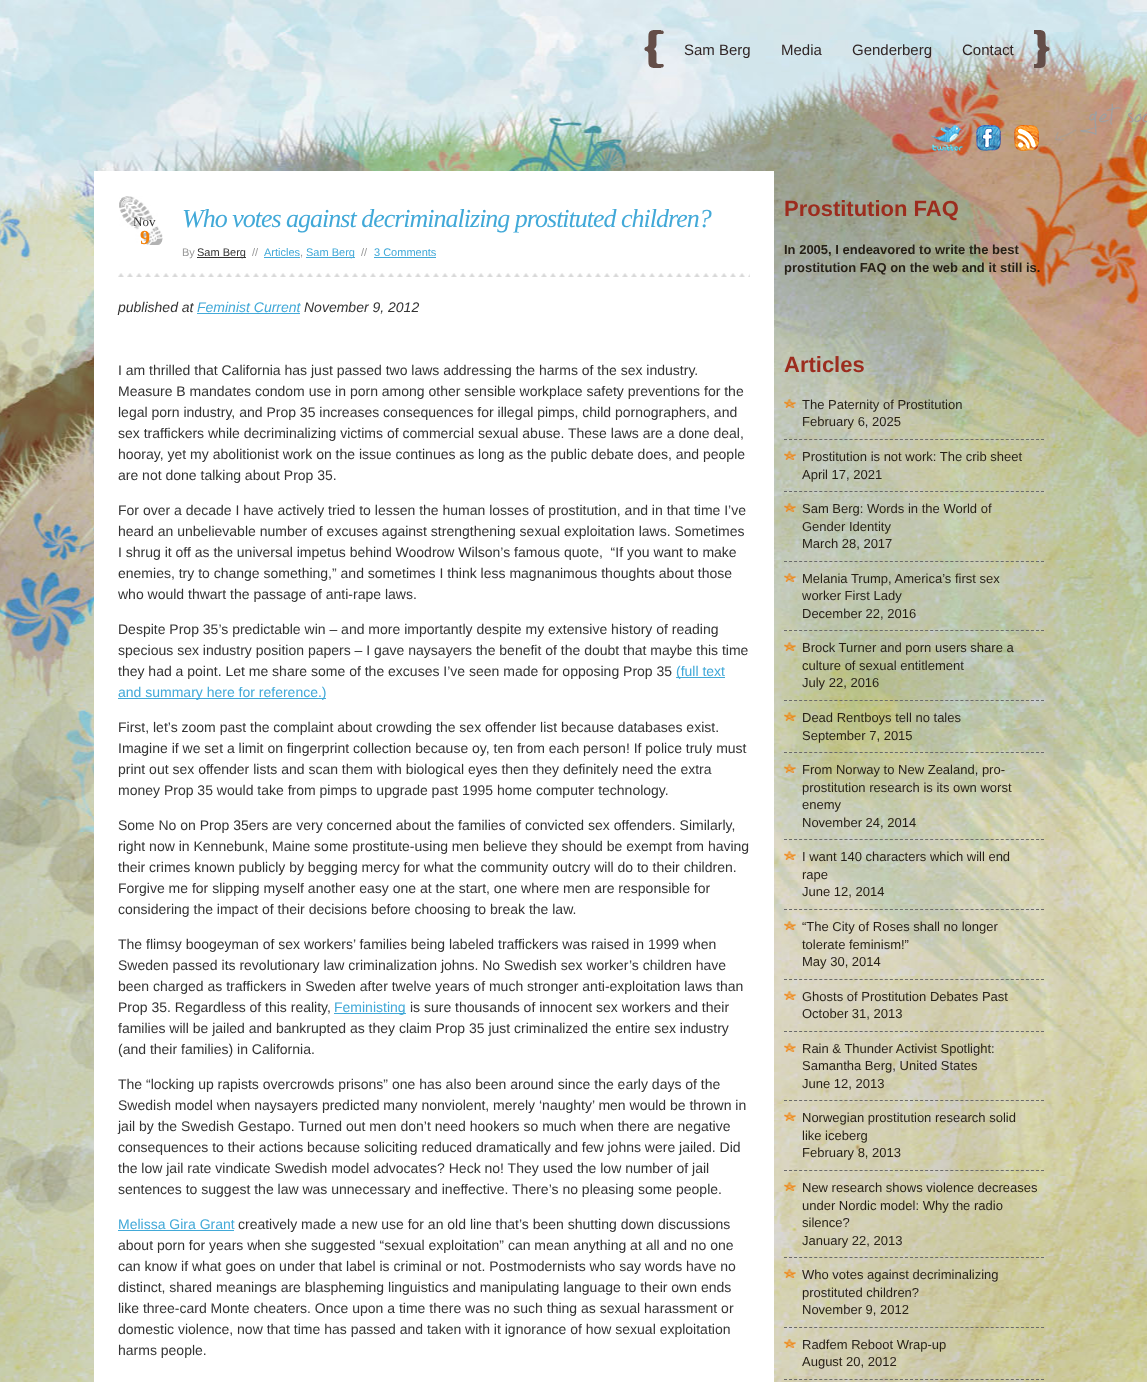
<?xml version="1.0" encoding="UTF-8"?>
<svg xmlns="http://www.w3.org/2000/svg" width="1147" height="1382">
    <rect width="100%" height="100%" fill="#FFFFFF"/>
    <image x="0" y="0" width="1147" height="1382" href="img_01.png"/>
    <image x="644" y="30" width="20" height="38" href="img_02.png"/>
    <image x="1034" y="30" width="16" height="38" href="img_03.png"/>
    <text x="684" y="55" font-family="Liberation Sans" font-size="15" fill="#302525">Sam Berg</text>
    <text x="781" y="55" font-family="Liberation Sans" font-size="15" fill="#302525">Media</text>
    <text x="852" y="55" font-family="Liberation Sans" font-size="15" fill="#302525">Genderberg</text>
    <text x="962" y="55" font-family="Liberation Sans" font-size="15" fill="#302525">Contact</text>
    <image x="931" y="125" width="32" height="26" href="img_04.png"/>
    <image x="976" y="125" width="25" height="26" href="img_05.png"/>
    <image x="1014" y="125" width="25" height="26" href="img_06.png"/>
    <image x="1054" y="103" width="93" height="38" href="img_07.png"/>
    <rect x="94" y="171" width="680" height="1211" fill="#FFFFFF"/>
    <image x="119" y="196" width="44" height="49" href="img_08.png"/>
    <text x="133" y="226" font-family="Liberation Serif" font-size="13" fill="#333333">Nov</text>
    <text x="140" y="244" font-family="Liberation Serif" font-size="20" font-weight="700" fill="#F28109">9</text>
    <text x="182" y="227" font-family="Liberation Serif" font-size="26" font-style="italic" letter-spacing="-1" fill="#42A9D8">Who votes against decriminalizing prostituted children?</text>
    <image x="118" y="273" width="632" height="4" href="img_09.png"/>
    <text x="182" y="256" font-family="Liberation Sans" font-size="11" fill="#999999">By</text>
    <rect x="197" y="257" width="49" height="1" fill="#333333"/>
    <text x="197" y="256" font-family="Liberation Sans" font-size="11" fill="#333333">Sam Berg</text>
    <text x="252" y="256" font-family="Liberation Sans" font-size="11" fill="#999999">//</text>
    <text x="264" y="256" font-family="Liberation Sans" font-size="11" fill="#42A9D8">Articles</text>
    <rect x="264" y="257" width="36" height="1" fill="#42A9D8"/>
    <text x="300" y="256" font-family="Liberation Sans" font-size="11" fill="#999999">,</text>
    <rect x="306" y="257" width="49" height="1" fill="#42A9D8"/>
    <text x="306" y="256" font-family="Liberation Sans" font-size="11" fill="#42A9D8">Sam Berg</text>
    <text x="361" y="256" font-family="Liberation Sans" font-size="11" fill="#999999">//</text>
    <text x="374" y="256" font-family="Liberation Sans" font-size="11" fill="#42A9D8">3 Comments</text>
    <rect x="374" y="257" width="62" height="1" fill="#42A9D8"/>
    <text x="118" y="312" font-family="Liberation Sans" font-size="14" font-style="italic" fill="#333333">published at</text>
    <text x="197" y="312" font-family="Liberation Sans" font-size="14" font-style="italic" fill="#42A9D8">Feminist Current</text>
    <rect x="197" y="313" width="103" height="1" fill="#42A9D8"/>
    <text x="304" y="312" font-family="Liberation Sans" font-size="14" font-style="italic" fill="#333333">November 9, 2012</text>
    <text font-family="Liberation Sans" font-size="14" fill="#333333">
        <tspan x="118" y="375">I am thrilled that California has just passed two laws addressing the harms of the sex industry.</tspan>
        <tspan x="118" y="396">Measure B mandates condom use in porn among other sensible workplace safety preventions for the</tspan>
        <tspan x="118" y="417">legal porn industry, and Prop 35 increases consequences for illegal pimps, child pornographers, and</tspan>
        <tspan x="118" y="438">sex traffickers while decriminalizing victims of commercial sexual abuse. These laws are a done deal,</tspan>
        <tspan x="118" y="459">hooray, yet my abolitionist work on the issue continues as long as the public debate does, and people</tspan>
        <tspan x="118" y="480">are not done talking about Prop 35.</tspan>
    </text>
    <text font-family="Liberation Sans" font-size="14" fill="#333333" xml:space="preserve"><tspan x="118" y="515">For over a decade I have actively tried to lessen the human losses of prostitution, and in that time I’ve</tspan><tspan x="118" y="536">heard an unbelievable number of excuses against strengthening sexual exploitation laws. Sometimes</tspan><tspan x="118" y="557">I shrug it off as the universal impetus behind Woodrow Wilson’s famous quote,  “If you want to make</tspan><tspan x="118" y="578">enemies, try to change something,” and sometimes I think less magnanimous thoughts about those</tspan><tspan x="118" y="599">who would thwart the passage of anti-rape laws.</tspan></text>
    <text font-family="Liberation Sans" font-size="14" fill="#333333">
        <tspan x="118" y="634">Despite Prop 35’s predictable win – and more importantly despite my extensive history of reading</tspan>
        <tspan x="118" y="655">specious sex industry position papers – I gave naysayers the benefit of the doubt that maybe this time</tspan>
        <tspan x="118" y="676">they had a point. Let me share some of the excuses I’ve seen made for opposing Prop 35</tspan>
    </text>
    <rect x="676" y="677" width="49" height="1" fill="#42A9D8"/>
    <text x="676" y="676" font-family="Liberation Sans" font-size="14" fill="#42A9D8">(full text</text>
    <rect x="118" y="698" width="208" height="1" fill="#42A9D8"/>
    <text x="118" y="697" font-family="Liberation Sans" font-size="14" fill="#42A9D8">and summary here for reference.)</text>
    <text font-family="Liberation Sans" font-size="14" fill="#333333">
        <tspan x="118" y="732">First, let’s zoom past the complaint about crowding the sex offender list because databases exist.</tspan>
        <tspan x="118" y="753">Imagine if we set a limit on fingerprint collection because oy, ten from each person! If police truly must</tspan>
        <tspan x="118" y="774">print out sex offender lists and scan them with biological eyes then they definitely need the extra</tspan>
        <tspan x="118" y="795">money Prop 35 would take from pimps to upgrade past 1995 home computer technology.</tspan>
    </text>
    <text font-family="Liberation Sans" font-size="14" fill="#333333">
        <tspan x="118" y="830">Some No on Prop 35ers are very concerned about the families of convicted sex offenders. Similarly,</tspan>
        <tspan x="118" y="851">right now in Kennebunk, Maine some prostitute-using men believe they should be exempt from having</tspan>
        <tspan x="118" y="872">their crimes known publicly by begging mercy for what the community outcry will do to their children.</tspan>
        <tspan x="118" y="893">Forgive me for slipping myself another easy one at the start, one where men are responsible for</tspan>
        <tspan x="118" y="914">considering the impact of their decisions before choosing to break the law.</tspan>
    </text>
    <text font-family="Liberation Sans" font-size="14" fill="#333333">
        <tspan x="118" y="949">The flimsy boogeyman of sex workers’ families being labeled traffickers was raised in 1999 when</tspan>
        <tspan x="118" y="970">Sweden passed its revolutionary law criminalization johns. No Swedish sex worker’s children have</tspan>
        <tspan x="118" y="991">been charged as traffickers in Sweden after twelve years of much stronger anti-exploitation laws than</tspan>
        <tspan x="118" y="1012">Prop 35. Regardless of this reality,</tspan>
    </text>
    <rect x="334" y="1013" width="72" height="1" fill="#42A9D8"/>
    <text x="334" y="1012" font-family="Liberation Sans" font-size="14" fill="#42A9D8">Feministing</text>
    <text x="410" y="1012" font-family="Liberation Sans" font-size="14" fill="#333333">is sure thousands of innocent sex workers and their</text>
    <text font-family="Liberation Sans" font-size="14" fill="#333333">
        <tspan x="118" y="1033">families will be jailed and bankrupted as they claim Prop 35 just criminalized the entire sex industry</tspan>
        <tspan x="118" y="1054">(and their families) in California.</tspan>
    </text>
    <text font-family="Liberation Sans" font-size="14" fill="#333333">
        <tspan x="118" y="1089">The “locking up rapists overcrowds prisons” one has also been around since the early days of the</tspan>
        <tspan x="118" y="1110">Swedish model when naysayers predicted many nonviolent, merely ‘naughty’ men would be thrown in</tspan>
        <tspan x="118" y="1131">jail by the Swedish Gestapo. Turned out men don’t need hookers so much when there are negative</tspan>
        <tspan x="118" y="1152">consequences to their actions because soliciting reduced dramatically and few johns were jailed. Did</tspan>
        <tspan x="118" y="1173">the low jail rate vindicate Swedish model advocates? Heck no! They used the low number of jail</tspan>
        <tspan x="118" y="1194">sentences to suggest the law was unnecessary and ineffective. There’s no pleasing some people.</tspan>
    </text>
    <text x="118" y="1229" font-family="Liberation Sans" font-size="14" fill="#42A9D8">Melissa Gira Grant</text>
    <rect x="118" y="1230" width="116" height="1" fill="#42A9D8"/>
    <text x="238" y="1229" font-family="Liberation Sans" font-size="14" fill="#333333">creatively made a new use for an old line that’s been shutting down discussions</text>
    <text font-family="Liberation Sans" font-size="14" fill="#333333">
        <tspan x="118" y="1250">about porn for years when she suggested “sexual exploitation” can mean anything at all and no one</tspan>
        <tspan x="118" y="1271">can know if what goes on under that label is criminal or not. Postmodernists who say words have no</tspan>
        <tspan x="118" y="1292">distinct, shared meanings are blaspheming linguistics and manipulating language to their own ends</tspan>
        <tspan x="118" y="1313">like three-card Monte cheaters. Once upon a time there was no such thing as sexual harassment or</tspan>
        <tspan x="118" y="1334">domestic violence, now that time has passed and taken with it ignorance of how sexual exploitation</tspan>
        <tspan x="118" y="1355">harms people.</tspan>
    </text>
    <text x="784" y="216" font-family="Liberation Sans" font-size="22" font-weight="700" fill="#9C2C1E">Prostitution FAQ</text>
    <text font-family="Liberation Sans" font-size="13" font-weight="700" fill="#251F15">
        <tspan x="784" y="254">In 2005, I endeavored to write the best</tspan>
        <tspan x="784" y="272">prostitution FAQ on the web and it still is.</tspan>
    </text>
    <text x="784" y="372" font-family="Liberation Sans" font-size="22" font-weight="700" fill="#9C2C1E">Articles</text>
    <image x="784" y="399" width="12" height="9" href="img_10.png"/>
    <path d="M 784 439.5 H 1044" fill="none" stroke="#696969" stroke-dasharray="3 2.04"/>
    <text font-family="Liberation Sans" font-size="13" fill="#251F15">
        <tspan x="802" y="409">The Paternity of Prostitution</tspan>
        <tspan x="802" y="426">February 6, 2025</tspan>
    </text>
    <image x="784" y="451" width="12" height="9" href="img_11.png"/>
    <path d="M 784 491.5 H 1044" fill="none" stroke="#696969" stroke-dasharray="3 2.04"/>
    <text font-family="Liberation Sans" font-size="13" fill="#251F15">
        <tspan x="802" y="461">Prostitution is not work: The crib sheet</tspan>
        <tspan x="802" y="479">April 17, 2021</tspan>
    </text>
    <image x="784" y="503" width="12" height="9" href="img_12.png"/>
    <path d="M 784 561.5 H 1044" fill="none" stroke="#696969" stroke-dasharray="3 2.04"/>
    <text font-family="Liberation Sans" font-size="13" fill="#251F15">
        <tspan x="802" y="513">Sam Berg: Words in the World of</tspan>
        <tspan x="802" y="531">Gender Identity</tspan>
        <tspan x="802" y="548">March 28, 2017</tspan>
    </text>
    <image x="784" y="573" width="12" height="9" href="img_13.png"/>
    <path d="M 784 630.5 H 1044" fill="none" stroke="#696969" stroke-dasharray="3 2.04"/>
    <text font-family="Liberation Sans" font-size="13" fill="#251F15">
        <tspan x="802" y="583">Melania Trump, America’s first sex</tspan>
        <tspan x="802" y="600">worker First Lady</tspan>
        <tspan x="802" y="618">December 22, 2016</tspan>
    </text>
    <image x="784" y="642" width="12" height="9" href="img_14.png"/>
    <path d="M 784 700.5 H 1044" fill="none" stroke="#696969" stroke-dasharray="3 2.04"/>
    <text font-family="Liberation Sans" font-size="13" fill="#251F15">
        <tspan x="802" y="652">Brock Turner and porn users share a</tspan>
        <tspan x="802" y="670">culture of sexual entitlement</tspan>
        <tspan x="802" y="687">July 22, 2016</tspan>
    </text>
    <image x="784" y="712" width="12" height="9" href="img_15.png"/>
    <path d="M 784 752.5 H 1044" fill="none" stroke="#696969" stroke-dasharray="3 2.04"/>
    <text font-family="Liberation Sans" font-size="13" fill="#251F15">
        <tspan x="802" y="722">Dead Rentboys tell no tales</tspan>
        <tspan x="802" y="740">September 7, 2015</tspan>
    </text>
    <image x="784" y="764" width="12" height="9" href="img_16.png"/>
    <path d="M 784 839.5 H 1044" fill="none" stroke="#696969" stroke-dasharray="3 2.04"/>
    <text font-family="Liberation Sans" font-size="13" fill="#251F15">
        <tspan x="802" y="774">From Norway to New Zealand, pro-</tspan>
        <tspan x="802" y="792">prostitution research is its own worst</tspan>
        <tspan x="802" y="809">enemy</tspan>
        <tspan x="802" y="827">November 24, 2014</tspan>
    </text>
    <image x="784" y="851" width="12" height="9" href="img_17.png"/>
    <path d="M 784 909.5 H 1044" fill="none" stroke="#696969" stroke-dasharray="3 2.04"/>
    <text font-family="Liberation Sans" font-size="13" fill="#251F15">
        <tspan x="802" y="861">I want 140 characters which will end</tspan>
        <tspan x="802" y="879">rape</tspan>
        <tspan x="802" y="896">June 12, 2014</tspan>
    </text>
    <image x="784" y="921" width="12" height="9" href="img_18.png"/>
    <path d="M 784 979.5 H 1044" fill="none" stroke="#696969" stroke-dasharray="3 2.04"/>
    <text font-family="Liberation Sans" font-size="13" fill="#251F15">
        <tspan x="802" y="931">“The City of Roses shall no longer</tspan>
        <tspan x="802" y="949">tolerate feminism!”</tspan>
        <tspan x="802" y="966">May 30, 2014</tspan>
    </text>
    <image x="784" y="991" width="12" height="9" href="img_19.png"/>
    <path d="M 784 1031.5 H 1044" fill="none" stroke="#696969" stroke-dasharray="3 2.04"/>
    <text font-family="Liberation Sans" font-size="13" fill="#251F15">
        <tspan x="802" y="1001">Ghosts of Prostitution Debates Past</tspan>
        <tspan x="802" y="1018">October 31, 2013</tspan>
    </text>
    <image x="784" y="1043" width="12" height="9" href="img_20.png"/>
    <path d="M 784 1100.5 H 1044" fill="none" stroke="#696969" stroke-dasharray="3 2.04"/>
    <text font-family="Liberation Sans" font-size="13" fill="#251F15">
        <tspan x="802" y="1053">Rain &amp; Thunder Activist Spotlight:</tspan>
        <tspan x="802" y="1070">Samantha Berg, United States</tspan>
        <tspan x="802" y="1088">June 12, 2013</tspan>
    </text>
    <image x="784" y="1112" width="12" height="9" href="img_21.png"/>
    <path d="M 784 1170.5 H 1044" fill="none" stroke="#696969" stroke-dasharray="3 2.04"/>
    <text font-family="Liberation Sans" font-size="13" fill="#251F15">
        <tspan x="802" y="1122">Norwegian prostitution research solid</tspan>
        <tspan x="802" y="1140">like iceberg</tspan>
        <tspan x="802" y="1157">February 8, 2013</tspan>
    </text>
    <image x="784" y="1182" width="12" height="9" href="img_22.png"/>
    <path d="M 784 1257.5 H 1044" fill="none" stroke="#696969" stroke-dasharray="3 2.04"/>
    <text font-family="Liberation Sans" font-size="13" fill="#251F15">
        <tspan x="802" y="1192">New research shows violence decreases</tspan>
        <tspan x="802" y="1210">under Nordic model: Why the radio</tspan>
        <tspan x="802" y="1227">silence?</tspan>
        <tspan x="802" y="1245">January 22, 2013</tspan>
    </text>
    <image x="784" y="1269" width="12" height="9" href="img_23.png"/>
    <path d="M 784 1327.5 H 1044" fill="none" stroke="#696969" stroke-dasharray="3 2.04"/>
    <text font-family="Liberation Sans" font-size="13" fill="#251F15">
        <tspan x="802" y="1279">Who votes against decriminalizing</tspan>
        <tspan x="802" y="1297">prostituted children?</tspan>
        <tspan x="802" y="1314">November 9, 2012</tspan>
    </text>
    <image x="784" y="1339" width="12" height="9" href="img_24.png"/>
    <path d="M 784 1379.5 H 1044" fill="none" stroke="#696969" stroke-dasharray="3 2.04"/>
    <text font-family="Liberation Sans" font-size="13" fill="#251F15">
        <tspan x="802" y="1349">Radfem Reboot Wrap-up</tspan>
        <tspan x="802" y="1366">August 20, 2012</tspan>
    </text>
</svg>
